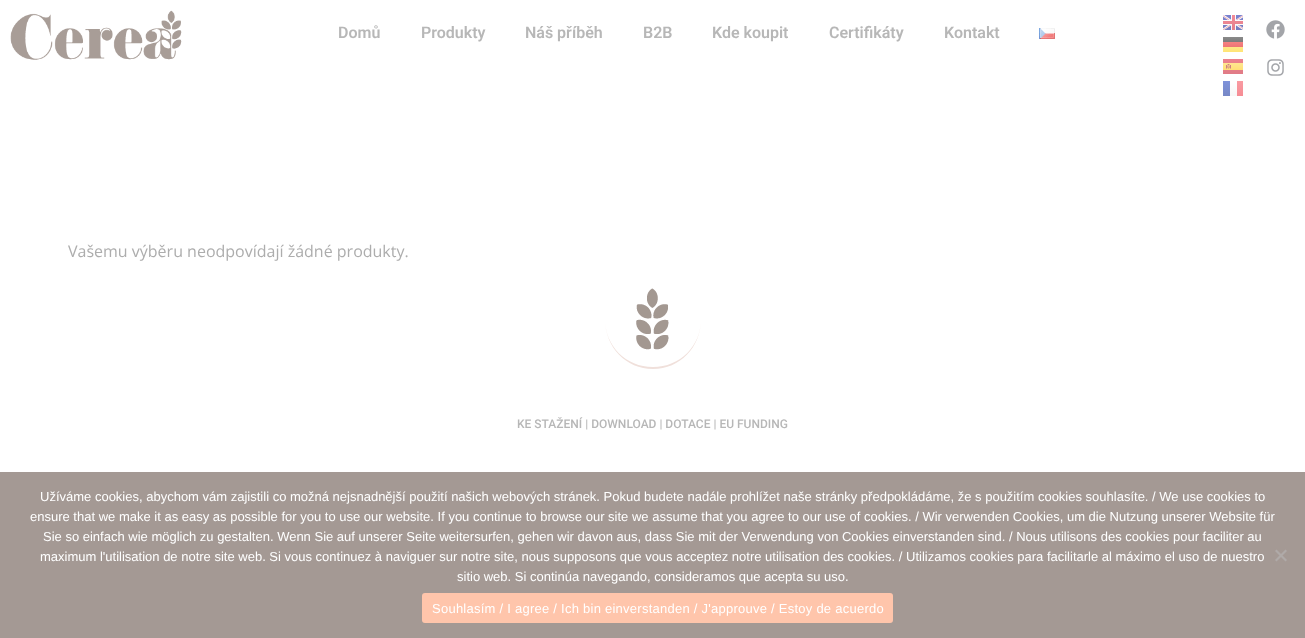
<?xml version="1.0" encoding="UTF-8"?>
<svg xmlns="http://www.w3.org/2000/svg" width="1305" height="638">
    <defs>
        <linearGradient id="g1" gradientUnits="userSpaceOnUse" x1="1234" y1="37" x2="1234" y2="42"><stop offset="0" stop-color="#8A8A8A"/><stop offset="1" stop-color="#7C7C7C"/></linearGradient>
        <linearGradient id="g2" gradientUnits="userSpaceOnUse" x1="1234" y1="42" x2="1234" y2="47"><stop offset="0" stop-color="#F78181"/><stop offset="1" stop-color="#ED7575"/></linearGradient>
        <linearGradient id="g3" gradientUnits="userSpaceOnUse" x1="1234" y1="47" x2="1234" y2="52"><stop offset="0" stop-color="#FFE887"/><stop offset="1" stop-color="#FFE575"/></linearGradient>
        <linearGradient id="g4" gradientUnits="userSpaceOnUse" x1="1227" y1="81" x2="1227" y2="96"><stop offset="0" stop-color="#7E92DA"/><stop offset="1" stop-color="#7788C6"/></linearGradient>
        <linearGradient id="g5" gradientUnits="userSpaceOnUse" x1="1234" y1="81" x2="1234" y2="96"><stop offset="0" stop-color="#FFFFFF"/><stop offset="1" stop-color="#F7F7F7"/></linearGradient>
        <linearGradient id="g6" gradientUnits="userSpaceOnUse" x1="1239" y1="81" x2="1239" y2="96"><stop offset="0" stop-color="#F99BA2"/><stop offset="1" stop-color="#F68C94"/></linearGradient>
    </defs>
    <rect width="100%" height="100%" fill="#FFFFFF"/>
    <image x="10" y="10" width="172" height="50" href="img_01.png"/>
    <text x="338" y="38" font-family="Roboto" font-size="16" font-weight="600" fill="#B7B7B7">Domů</text>
    <text x="421" y="38" font-family="Roboto" font-size="16" font-weight="600" fill="#B7B7B7">Produkty</text>
    <text x="525" y="38" font-family="Roboto" font-size="16" font-weight="600" fill="#B7B7B7">Náš příběh</text>
    <text x="643" y="38" font-family="Roboto" font-size="16" font-weight="600" fill="#B7B7B7">B2B</text>
    <text x="712" y="38" font-family="Roboto" font-size="16" font-weight="600" fill="#B7B7B7">Kde koupit</text>
    <text x="829" y="38" font-family="Roboto" font-size="16" font-weight="600" fill="#B7B7B7">Certifikáty</text>
    <text x="944" y="38" font-family="Roboto" font-size="16" font-weight="600" fill="#B7B7B7">Kontakt</text>
    <image x="1039" y="28" width="16" height="11" href="img_02.png"/>
    <image x="1223" y="15" width="20" height="15" href="img_03.png"/>
    <rect x="1223" y="37" width="20" height="5" fill="url(#g1)"/>
    <rect x="1223" y="42" width="20" height="5" fill="url(#g2)"/>
    <rect x="1223" y="47" width="20" height="5" fill="url(#g3)"/>
    <image x="1223" y="59" width="20" height="15" href="img_04.png"/>
    <rect x="1223" y="81" width="7" height="15" fill="url(#g4)"/>
    <rect x="1230" y="81" width="7" height="15" fill="url(#g5)"/>
    <rect x="1237" y="81" width="6" height="15" fill="url(#g6)"/>
    <image x="1266" y="20" width="19" height="19" href="img_05.png"/>
    <image x="1267" y="59" width="17" height="17" href="img_06.png"/>
    <text x="68" y="257" font-family="Open Sans" font-size="16" fill="#ADADAD">Vašemu výběru neodpovídají žádné produkty.</text>
    <text x="517" y="428" font-family="Roboto" font-size="12" font-weight="500" fill="#B7B7B7">KE STAŽENÍ | DOWNLOAD | DOTACE | EU FUNDING</text>
    <rect x="0" y="472" width="1305" height="166" fill="#A49994"/>
    <text x="40" y="501" font-family="Liberation Sans" font-size="13" fill="#FFFFFF">Užíváme cookies, abychom vám zajistili co možná nejsnadnější použití našich webových stránek. Pokud budete nadále prohlížet naše stránky předpokládáme, že s použitím cookies souhlasíte. / We use cookies to</text>
    <text x="30" y="521" font-family="Liberation Sans" font-size="13" fill="#FFFFFF">ensure that we make it as easy as possible for you to use our website. If you continue to browse our site we assume that you agree to our use of cookies. / Wir verwenden Cookies, um die Nutzung unserer Website für</text>
    <text x="43" y="541" font-family="Liberation Sans" font-size="13" fill="#FFFFFF">Sie so einfach wie möglich zu gestalten. Wenn Sie auf unserer Seite weitersurfen, gehen wir davon aus, dass Sie mit der Verwendung von Cookies einverstanden sind. / Nous utilisons des cookies pour faciliter au</text>
    <text x="40" y="561" font-family="Liberation Sans" font-size="13" fill="#FFFFFF">maximum l'utilisation de notre site web. Si vous continuez à naviguer sur notre site, nous supposons que vous acceptez notre utilisation des cookies. / Utilizamos cookies para facilitarle al máximo el uso de nuestro</text>
    <text x="457" y="581" font-family="Liberation Sans" font-size="13" fill="#FFFFFF">sitio web. Si continúa navegando, consideramos que acepta su uso.</text>
    <path d="M 1285.5 549.5 L 1287 551 L 1276.5 561.5 L 1275 560 Z" fill="#AFAAA8"/>
    <path d="M 1275 551 L 1276.5 549.5 L 1287 560 L 1285.5 561.5 Z" fill="#AFAAA8"/>
    <rect x="422" y="593" width="471" height="30" rx="3" fill="#FFC5AB"/>
    <text x="432" y="613" font-family="Liberation Sans" font-size="13" letter-spacing="0.25" fill="#FFFFFF">Souhlasím / I agree / Ich bin einverstanden / J'approuve / Estoy de acuerdo</text>
    <image x="636" y="288" width="33" height="62" href="img_07.png"/>
    <path d="M 605 319 C 605 346 626 367 653 367 C 680 367 701 346 701 319 C 701 347 680 369 653 369 C 626 369 605 347 605 319" fill="#F0E0DB"/>
</svg>
